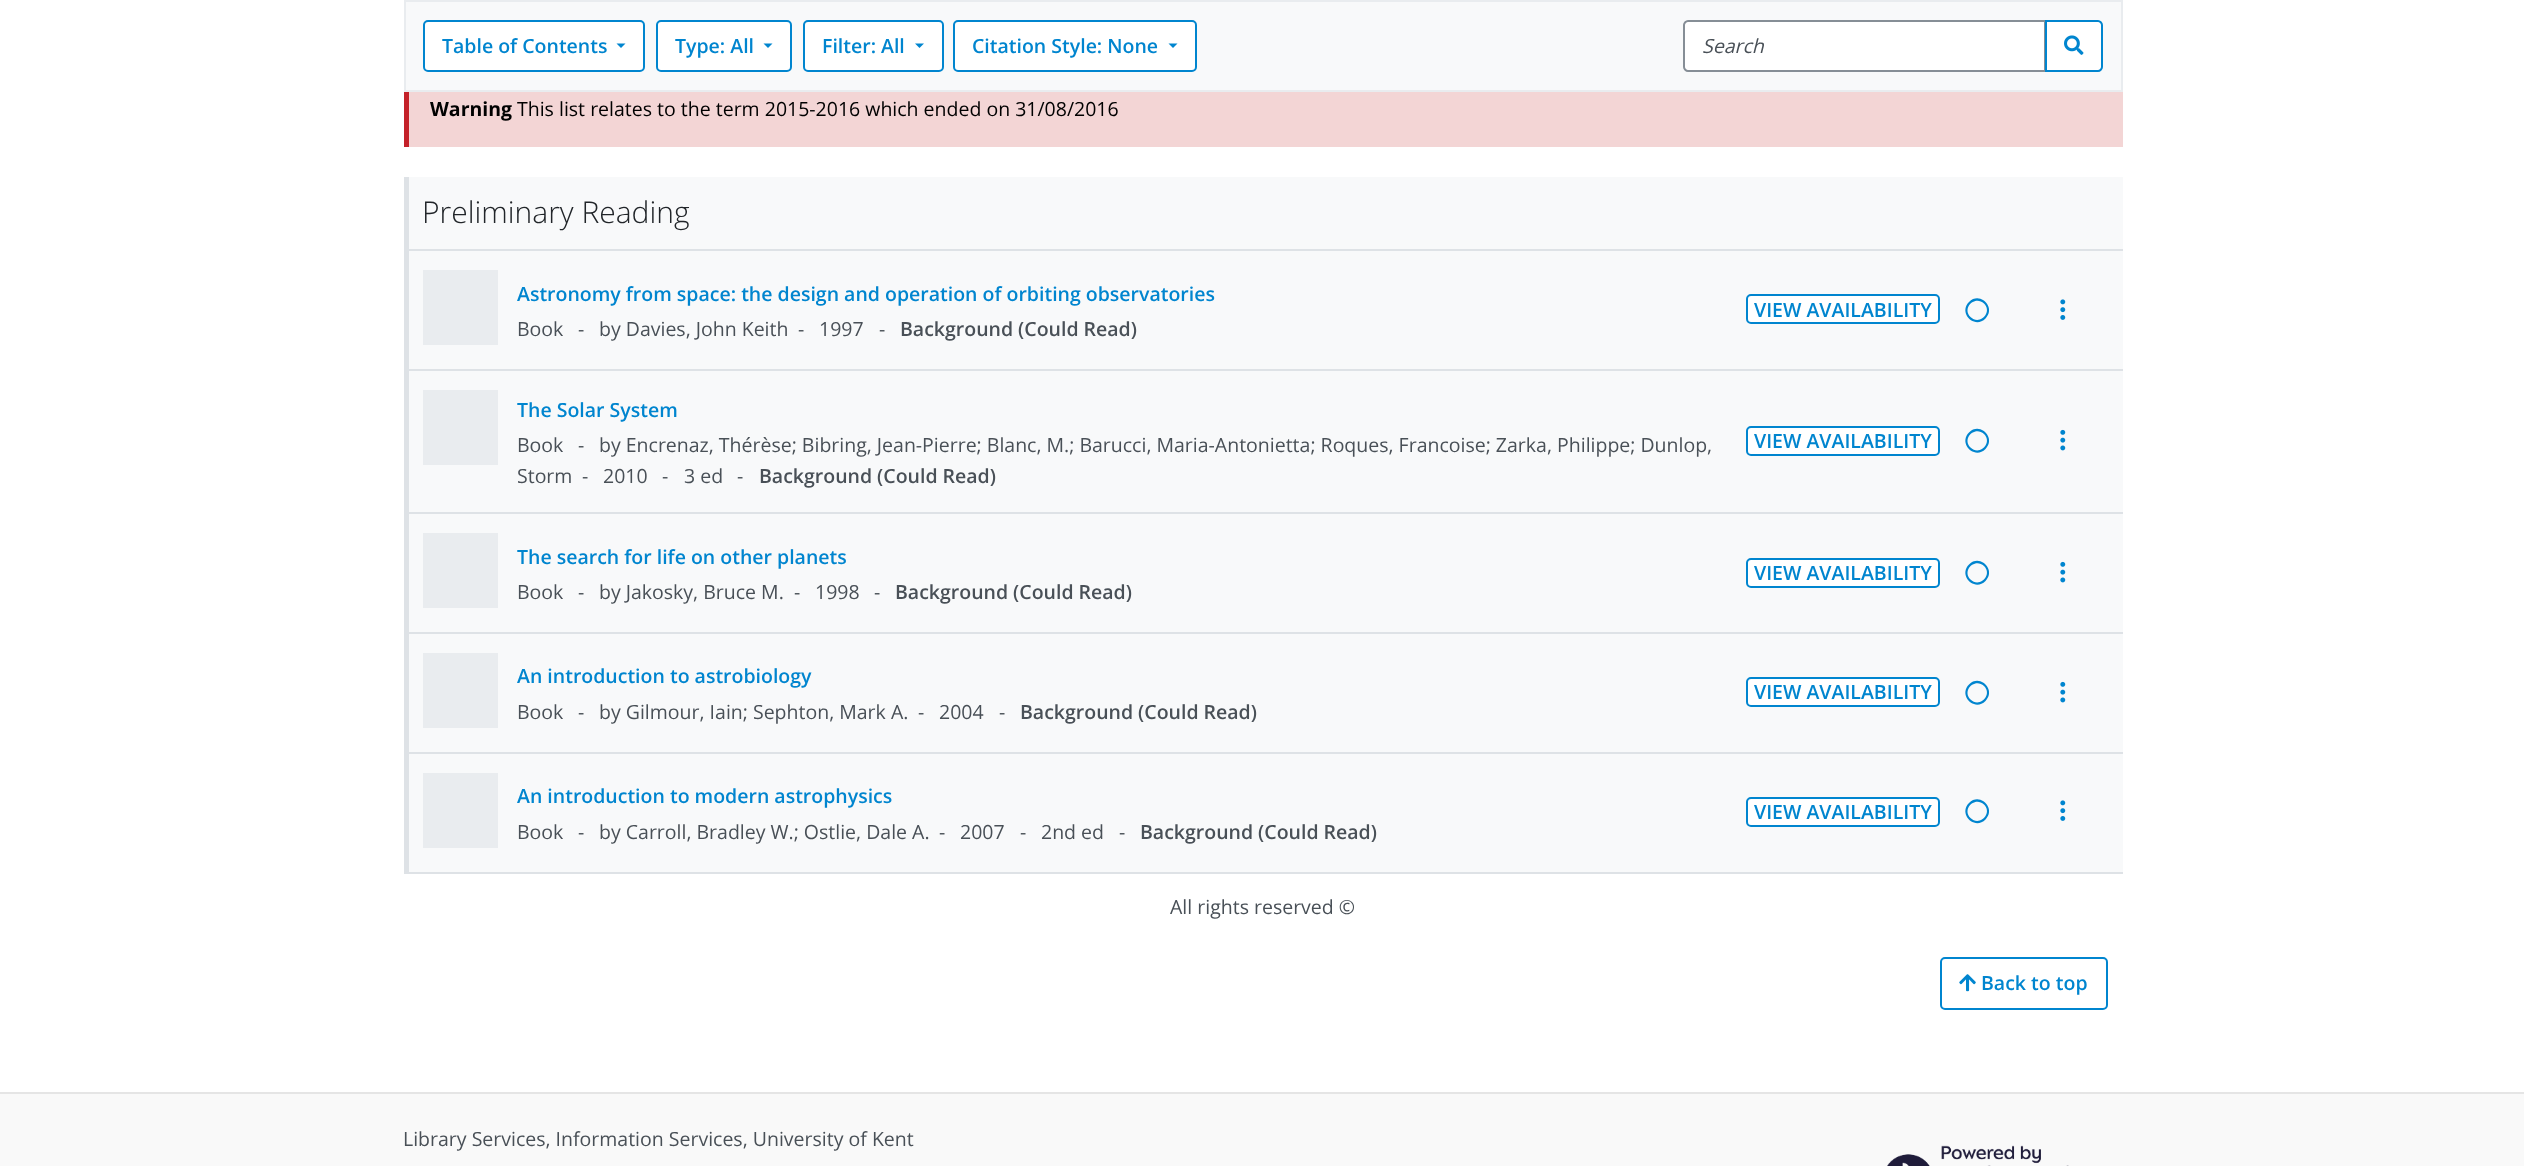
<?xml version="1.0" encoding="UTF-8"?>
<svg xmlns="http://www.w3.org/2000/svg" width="2524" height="1166">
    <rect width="100%" height="100%" fill="#FFFFFF"/>
    <rect x="405" y="1" width="1717" height="90" fill="#F8F9FA" stroke="#E9ECEF" stroke-width="2"/>
    <rect x="424" y="21" width="220" height="50" rx="4" fill="#FFFFFF" stroke="#0085CF" stroke-width="2"/>
    <text x="442" y="53" font-family="Open Sans" font-size="19.5" font-weight="600" fill="#0085CF">Table of Contents</text>
    <path d="M 616.5 43.5 H 625.5 L 621 48 Z" fill="#0085CF"/>
    <rect x="657" y="21" width="134" height="50" rx="4" fill="#FFFFFF" stroke="#0085CF" stroke-width="2"/>
    <text x="675" y="53" font-family="Open Sans" font-size="19.5" font-weight="600" fill="#0085CF">Type: All</text>
    <path d="M 763.5 43.5 H 772.5 L 768 48 Z" fill="#0085CF"/>
    <rect x="804" y="21" width="139" height="50" rx="4" fill="#FFFFFF" stroke="#0085CF" stroke-width="2"/>
    <text x="822" y="53" font-family="Open Sans" font-size="19.5" font-weight="600" fill="#0085CF">Filter: All</text>
    <path d="M 915 43.5 H 924 L 919.5 48 Z" fill="#0085CF"/>
    <rect x="954" y="21" width="242" height="50" rx="4" fill="#FFFFFF" stroke="#0085CF" stroke-width="2"/>
    <text x="972" y="53" font-family="Open Sans" font-size="19.5" font-weight="600" fill="#0085CF">Citation Style: None</text>
    <path d="M 1168.5 43.5 H 1177.5 L 1173 48 Z" fill="#0085CF"/>
    <path d="M 1688 21 H 2045 V 71 H 1688 C 1686 71 1684 69 1684 67 V 25 C 1684 23 1686 21 1688 21 Z" fill="#FFFFFF" stroke="#868E96" stroke-width="2"/>
    <text x="1702" y="53" font-family="Open Sans" font-size="19.5" font-style="italic" fill="#495057">Search</text>
    <path d="M 2046 21 H 2098 C 2100 21 2102 23 2102 25 V 67 C 2102 69 2100 71 2098 71 H 2046 Z" fill="#FFFFFF" stroke="#0085CF" stroke-width="2"/>
    <image x="2064" y="35" width="20" height="20" href="img_01.png"/>
    <rect x="409" y="92" width="1714" height="55" fill="#F3D5D5"/>
    <rect x="404" y="92" width="5" height="55" fill="#C42129"/>
    <text x="430" y="116" font-family="Open Sans" font-size="19.5" font-weight="700" fill="#000000">Warning</text>
    <text x="517" y="116" font-family="Open Sans" font-size="19.5" fill="#000000">This list relates to the term 2015-2016 which ended on 31/08/2016</text>
    <rect x="409" y="177" width="1714" height="695" fill="#F8F9FA"/>
    <rect x="404" y="177" width="5" height="695" fill="#DEE2E6"/>
    <rect x="404" y="872" width="1719" height="2" fill="#DEE2E6"/>
    <rect x="404" y="249" width="1719" height="2" fill="#DEE2E6"/>
    <text x="422" y="223" font-family="Open Sans" font-size="30" font-weight="300" fill="#212529">Preliminary Reading</text>
    <rect x="404" y="369" width="1719" height="2" fill="#DEE2E6"/>
    <rect x="423" y="270" width="75" height="75" fill="#E9ECEF"/>
    <text x="517" y="301" font-family="Open Sans" font-size="19.5" font-weight="600" fill="#0085CF">Astronomy from space: the design and operation of orbiting observatories</text>
    <text x="517" y="336" font-family="Open Sans" font-size="19.5" fill="#495057">Book</text>
    <text x="578" y="336" font-family="Open Sans" font-size="19.5" fill="#495057">-</text>
    <text x="599" y="336" font-family="Open Sans" font-size="19.5" fill="#495057">by Davies, John Keith</text>
    <text x="798" y="336" font-family="Open Sans" font-size="19.5" fill="#495057">-</text>
    <text x="819" y="336" font-family="Open Sans" font-size="19.5" fill="#495057">1997</text>
    <text x="879" y="336" font-family="Open Sans" font-size="19.5" fill="#495057">-</text>
    <text x="900" y="336" font-family="Open Sans" font-size="19.5" font-weight="600" fill="#495057">Background (Could Read)</text>
    <rect x="1747" y="295" width="192" height="28" rx="4" fill="#FFFFFF" stroke="#0085CF" stroke-width="2"/>
    <text x="1754" y="317" font-family="Open Sans" font-size="19.5" font-weight="600" fill="#0085CF">VIEW AVAILABILITY</text>
    <path d="M 1969 302 C 1980 291 1996.5 307.5 1985.5 318.5 C 1974.5 329.5 1958 313 1969 302 Z M 1970.5 317 C 1979.5 326 1993 312.5 1984 303.5 C 1975 295 1961.5 308 1970.5 317 Z" fill="#0085CF"/>
    <image x="2060" y="299" width="6" height="21" href="img_02.png"/>
    <rect x="404" y="512" width="1719" height="2" fill="#DEE2E6"/>
    <rect x="423" y="390" width="75" height="75" fill="#E9ECEF"/>
    <text x="517" y="417" font-family="Open Sans" font-size="19.5" font-weight="600" fill="#0085CF">The Solar System</text>
    <text x="517" y="452" font-family="Open Sans" font-size="19.5" fill="#495057">Book</text>
    <text x="578" y="452" font-family="Open Sans" font-size="19.5" fill="#495057">-</text>
    <text x="599" y="452" font-family="Open Sans" font-size="19.5" fill="#495057">by Encrenaz, Thérèse; Bibring, Jean-Pierre; Blanc, M.; Barucci, Maria-Antonietta; Roques, Francoise; Zarka, Philippe; Dunlop,</text>
    <text x="517" y="483" font-family="Open Sans" font-size="19.5" fill="#495057">Storm</text>
    <text x="582" y="483" font-family="Open Sans" font-size="19.5" fill="#495057">-</text>
    <text x="603" y="483" font-family="Open Sans" font-size="19.5" fill="#495057">2010</text>
    <text x="662" y="483" font-family="Open Sans" font-size="19.5" fill="#495057">-</text>
    <text x="684" y="483" font-family="Open Sans" font-size="19.5" fill="#495057">3 ed</text>
    <text x="737" y="483" font-family="Open Sans" font-size="19.5" fill="#495057">-</text>
    <text x="759" y="483" font-family="Open Sans" font-size="19.5" font-weight="600" fill="#495057">Background (Could Read)</text>
    <rect x="1747" y="427" width="192" height="28" rx="4" fill="#FFFFFF" stroke="#0085CF" stroke-width="2"/>
    <text x="1754" y="448" font-family="Open Sans" font-size="19.5" font-weight="600" fill="#0085CF">VIEW AVAILABILITY</text>
    <path d="M 1969 432.5 C 1980 421.5 1996.5 438 1985.5 449 C 1974.5 460 1958 443.5 1969 432.5 Z M 1970.5 447.5 C 1979.5 456.5 1993 443 1984 434 C 1975 425.5 1961.5 438.5 1970.5 447.5 Z" fill="#0085CF"/>
    <image x="2060" y="429" width="6" height="22" href="img_03.png"/>
    <rect x="404" y="632" width="1719" height="2" fill="#DEE2E6"/>
    <rect x="423" y="533" width="75" height="75" fill="#E9ECEF"/>
    <text x="517" y="564" font-family="Open Sans" font-size="19.5" font-weight="600" fill="#0085CF">The search for life on other planets</text>
    <text x="517" y="599" font-family="Open Sans" font-size="19.5" fill="#495057">Book</text>
    <text x="578" y="599" font-family="Open Sans" font-size="19.5" fill="#495057">-</text>
    <text x="599" y="599" font-family="Open Sans" font-size="19.5" fill="#495057">by Jakosky, Bruce M.</text>
    <text x="794" y="599" font-family="Open Sans" font-size="19.5" fill="#495057">-</text>
    <text x="815" y="599" font-family="Open Sans" font-size="19.5" fill="#495057">1998</text>
    <text x="874" y="599" font-family="Open Sans" font-size="19.5" fill="#495057">-</text>
    <text x="895" y="599" font-family="Open Sans" font-size="19.5" font-weight="600" fill="#495057">Background (Could Read)</text>
    <rect x="1747" y="559" width="192" height="28" rx="4" fill="#FFFFFF" stroke="#0085CF" stroke-width="2"/>
    <text x="1754" y="580" font-family="Open Sans" font-size="19.5" font-weight="600" fill="#0085CF">VIEW AVAILABILITY</text>
    <path d="M 1969 564.5 C 1980 553.5 1996.5 570 1985.5 581 C 1974.5 592 1958 575.5 1969 564.5 Z M 1970.5 579.5 C 1979.5 588.5 1993 575 1984 566 C 1975 557.5 1961.5 570.5 1970.5 579.5 Z" fill="#0085CF"/>
    <image x="2060" y="561" width="6" height="22" href="img_03.png"/>
    <rect x="404" y="752" width="1719" height="2" fill="#DEE2E6"/>
    <rect x="423" y="653" width="75" height="75" fill="#E9ECEF"/>
    <text x="517" y="683" font-family="Open Sans" font-size="19.5" font-weight="600" fill="#0085CF">An introduction to astrobiology</text>
    <text x="517" y="719" font-family="Open Sans" font-size="19.5" fill="#495057">Book</text>
    <text x="578" y="719" font-family="Open Sans" font-size="19.5" fill="#495057">-</text>
    <text x="599" y="719" font-family="Open Sans" font-size="19.5" fill="#495057">by Gilmour, Iain; Sephton, Mark A.</text>
    <text x="918" y="719" font-family="Open Sans" font-size="19.5" fill="#495057">-</text>
    <text x="939" y="719" font-family="Open Sans" font-size="19.5" fill="#495057">2004</text>
    <text x="999" y="719" font-family="Open Sans" font-size="19.5" fill="#495057">-</text>
    <text x="1020" y="719" font-family="Open Sans" font-size="19.5" font-weight="600" fill="#495057">Background (Could Read)</text>
    <rect x="1747" y="678" width="192" height="28" rx="4" fill="#FFFFFF" stroke="#0085CF" stroke-width="2"/>
    <text x="1754" y="699" font-family="Open Sans" font-size="19.5" font-weight="600" fill="#0085CF">VIEW AVAILABILITY</text>
    <path d="M 1969 684.5 C 1980 673.5 1996.5 690 1985.5 701 C 1974.5 712 1958 695.5 1969 684.5 Z M 1970.5 699.5 C 1979.5 708.5 1993 695 1984 686 C 1975 677.5 1961.5 690.5 1970.5 699.5 Z" fill="#0085CF"/>
    <image x="2060" y="681" width="6" height="22" href="img_03.png"/>
    <rect x="423" y="773" width="75" height="75" fill="#E9ECEF"/>
    <text x="517" y="803" font-family="Open Sans" font-size="19.5" font-weight="600" fill="#0085CF">An introduction to modern astrophysics</text>
    <text x="517" y="839" font-family="Open Sans" font-size="19.5" fill="#495057">Book</text>
    <text x="578" y="839" font-family="Open Sans" font-size="19.5" fill="#495057">-</text>
    <text x="599" y="839" font-family="Open Sans" font-size="19.5" fill="#495057">by Carroll, Bradley W.; Ostlie, Dale A.</text>
    <text x="939" y="839" font-family="Open Sans" font-size="19.5" fill="#495057">-</text>
    <text x="960" y="839" font-family="Open Sans" font-size="19.5" fill="#495057">2007</text>
    <text x="1020" y="839" font-family="Open Sans" font-size="19.5" fill="#495057">-</text>
    <text x="1041" y="839" font-family="Open Sans" font-size="19.5" fill="#495057">2nd ed</text>
    <text x="1119" y="839" font-family="Open Sans" font-size="19.5" fill="#495057">-</text>
    <text x="1140" y="839" font-family="Open Sans" font-size="19.5" font-weight="600" fill="#495057">Background (Could Read)</text>
    <rect x="1747" y="798" width="192" height="28" rx="4" fill="#FFFFFF" stroke="#0085CF" stroke-width="2"/>
    <text x="1754" y="819" font-family="Open Sans" font-size="19.5" font-weight="600" fill="#0085CF">VIEW AVAILABILITY</text>
    <path d="M 1969 803 C 1980 792 1996.5 808.5 1985.5 819.5 C 1974.5 830.5 1958 814 1969 803 Z M 1970.5 818 C 1979.5 827 1993 813.5 1984 804.5 C 1975 796 1961.5 809 1970.5 818 Z" fill="#0085CF"/>
    <image x="2060" y="800" width="6" height="21" href="img_02.png"/>
    <text x="1170" y="914" font-family="Open Sans" font-size="19.5" fill="#495057">All rights reserved ©</text>
    <rect x="1941" y="958" width="166" height="51" rx="4" fill="none" stroke="#0085CF" stroke-width="2"/>
    <image x="1959" y="974" width="17" height="18" href="img_04.png"/>
    <text x="1981" y="990" font-family="Open Sans" font-size="19.5" font-weight="600" fill="#0085CF">Back to top</text>
    <rect x="0" y="1094" width="2524" height="72" fill="#F9F9F9"/>
    <rect x="0" y="1092" width="2524" height="2" fill="#E5E5E5"/>
    <text x="403" y="1146" font-family="Open Sans" font-size="19.5" fill="#495057">Library Services, Information Services, University of Kent</text>
    <image x="1887" y="1145" width="182" height="21" href="img_05.png"/>
</svg>
